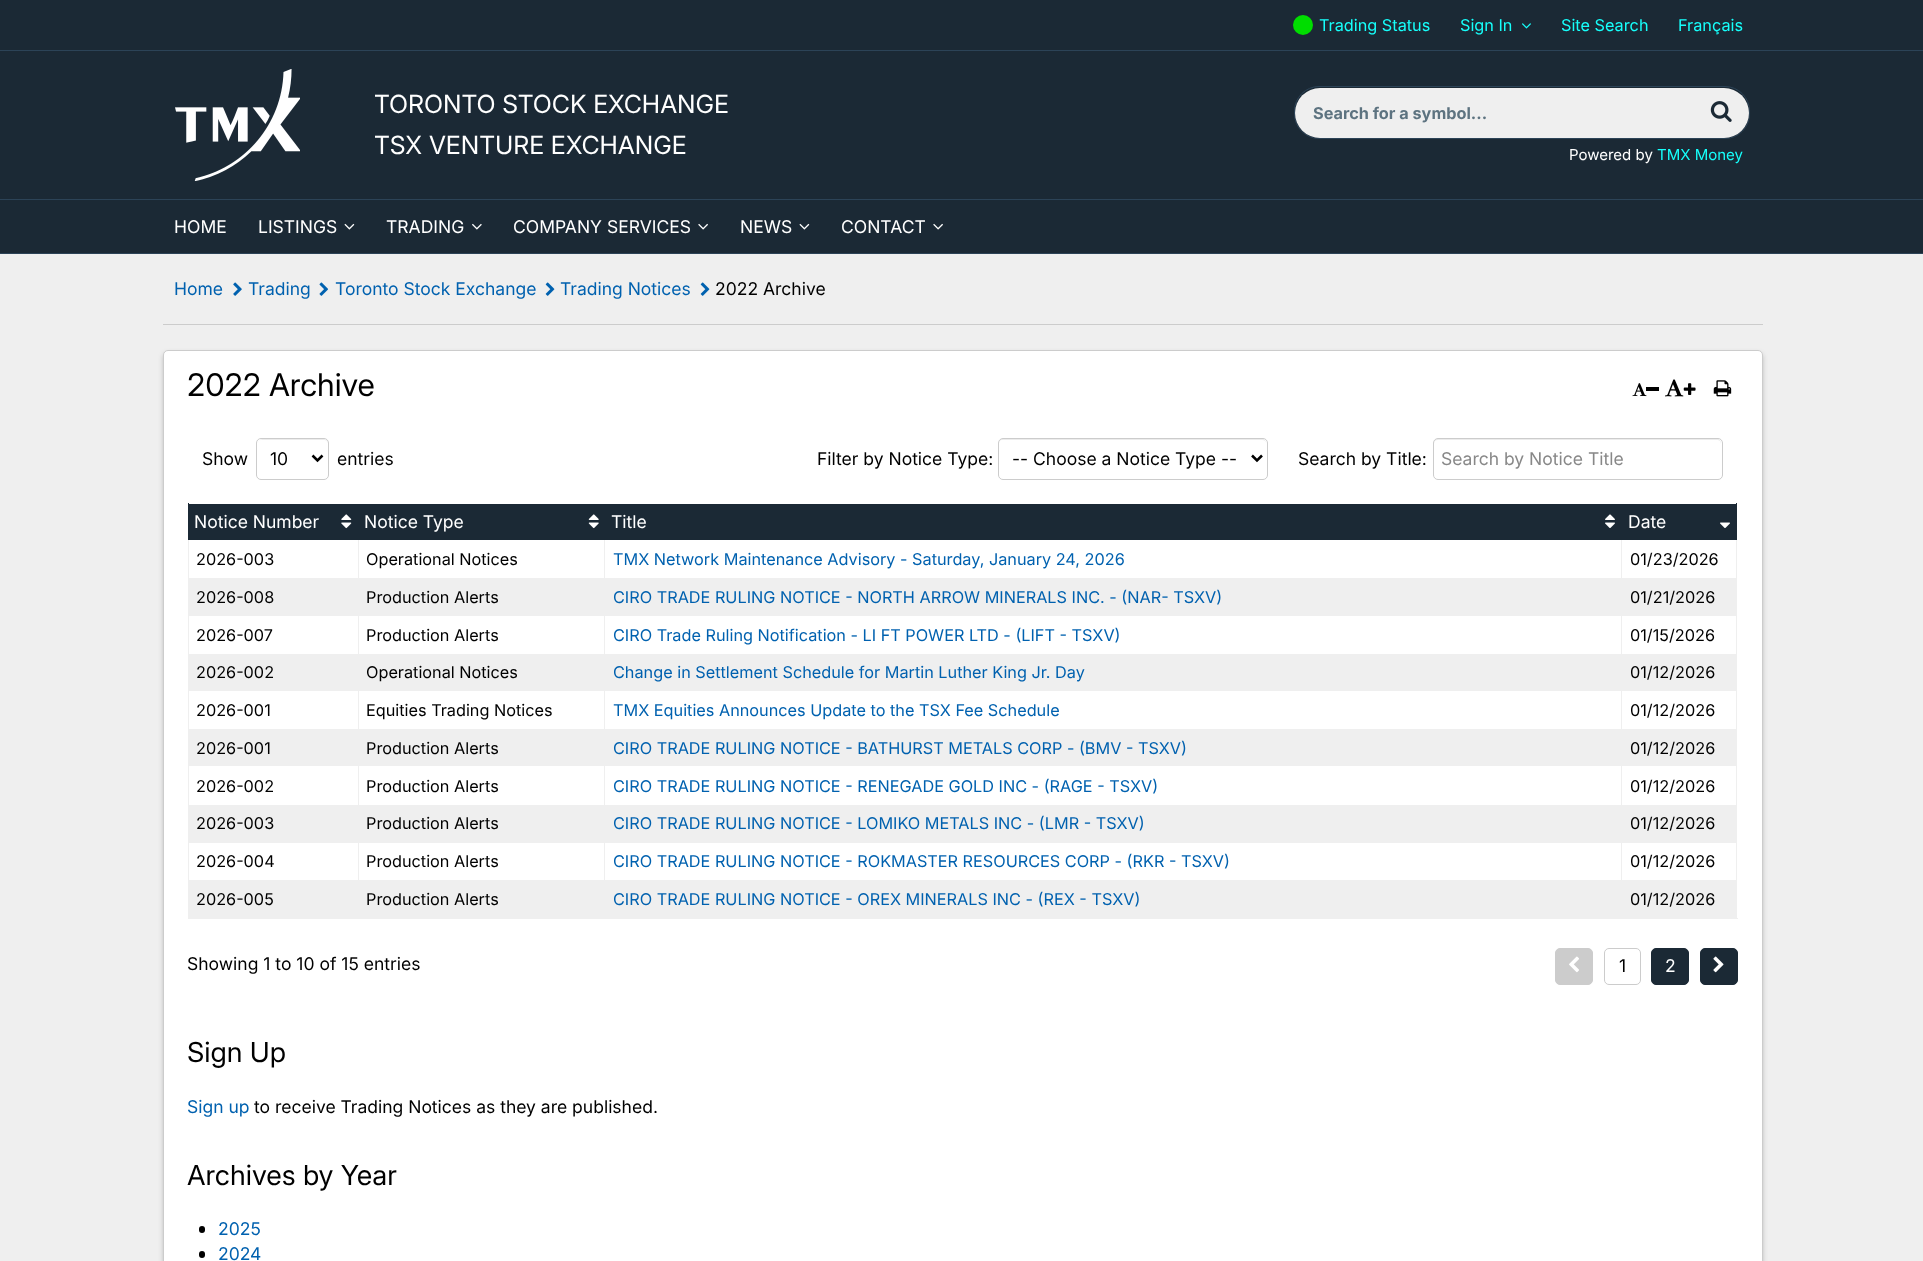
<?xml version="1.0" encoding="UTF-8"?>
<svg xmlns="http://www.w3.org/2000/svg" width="1923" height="1261">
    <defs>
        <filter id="blur1" x="-50%" y="-200%" width="200%" height="500%"><feGaussianBlur stdDeviation="2.5"/></filter>
    </defs>
    <rect width="100%" height="100%" fill="#EFEFEF"/>
    <rect x="0" y="0" width="1923" height="253" fill="#1B2935"/>
    <rect x="0" y="253" width="1923" height="1" fill="#2C4357"/>
    <circle cx="1303" cy="25" r="10" fill="#00DD00"/>
    <text x="1319" y="31" font-family="Inter" font-size="16.25" fill="#16FFFB">Trading Status</text>
    <text x="1460" y="31" font-family="Inter" font-size="16.25" fill="#16FFFB">Sign In</text>
    <image x="1522" y="23" width="9" height="6" href="img_01.png"/>
    <text x="1561" y="31" font-family="Inter" font-size="16.25" fill="#16FFFB">Site Search</text>
    <text x="1678" y="31" font-family="Inter" font-size="16.25" fill="#16FFFB">Français</text>
    <rect x="0" y="50" width="1923" height="1" fill="#2C4357"/>
    <rect x="0" y="199" width="1923" height="1" fill="#2C4357"/>
    <image x="175" y="69" width="125" height="112" href="img_02.png"/>
    <text font-family="'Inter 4'" font-size="25" fill="#FFFFFF">
        <tspan x="374" y="113">TORONTO STOCK EXCHANGE</tspan>
        <tspan x="374" y="154">TSX VENTURE EXCHANGE</tspan>
    </text>
    <rect x="1294.5" y="86.5" width="455" height="52" rx="24.5" fill="none" stroke="#2C4357"/>
    <rect x="1295" y="88" width="454" height="50" rx="25" fill="#EFEFEF"/>
    <text x="1313" y="119" font-family="Inter" font-size="16.25" font-weight="700" fill="#5D7380">Search for a symbol...</text>
    <image x="1710" y="101" width="22" height="21" href="img_03.png"/>
    <text x="1569" y="160" font-family="Inter" font-size="15" fill="#FFFFFF">Powered by</text>
    <text x="1657" y="160" font-family="Inter" font-size="15" fill="#16FFFB">TMX Money</text>
    <text x="174" y="233" font-family="Inter" font-size="17.5" fill="#FFFFFF">HOME</text>
    <text x="258" y="233" font-family="Inter" font-size="17.5" fill="#FFFFFF">LISTINGS</text>
    <image x="344" y="223" width="11" height="7" href="img_04.png"/>
    <text x="386" y="233" font-family="Inter" font-size="17.5" fill="#FFFFFF">TRADING</text>
    <image x="472" y="223" width="10" height="7" href="img_05.png"/>
    <text x="513" y="233" font-family="Inter" font-size="17.5" fill="#FFFFFF">COMPANY SERVICES</text>
    <image x="698" y="223" width="10" height="7" href="img_06.png"/>
    <text x="740" y="233" font-family="Inter" font-size="17.5" fill="#FFFFFF">NEWS</text>
    <image x="799" y="223" width="11" height="7" href="img_04.png"/>
    <text x="841" y="233" font-family="Inter" font-size="17.5" fill="#FFFFFF">CONTACT</text>
    <image x="933" y="223" width="10" height="7" href="img_06.png"/>
    <rect x="163" y="324" width="1600" height="1" fill="#CCCCCC"/>
    <text x="174" y="295" font-family="Inter" font-size="17.5" fill="#0061AF">Home</text>
    <image x="233" y="282" width="9" height="14" href="img_07.png"/>
    <text x="248" y="295" font-family="Inter" font-size="17.5" fill="#0061AF">Trading</text>
    <image x="319" y="282" width="10" height="14" href="img_08.png"/>
    <text x="335" y="295" font-family="Inter" font-size="17.5" fill="#0061AF">Toronto Stock Exchange</text>
    <image x="545" y="282" width="10" height="14" href="img_09.png"/>
    <text x="560" y="295" font-family="Inter" font-size="17.5" fill="#0061AF">Trading Notices</text>
    <image x="700" y="282" width="10" height="14" href="img_09.png"/>
    <text x="715" y="295" font-family="Inter" font-size="17.5" fill="#000000">2022 Archive</text>
    <rect x="163" y="353" width="1600" height="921" rx="5" fill="#000000" fill-opacity="0.2" filter="url(#blur1)"/>
    <rect x="163.5" y="350.5" width="1599" height="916" rx="4.5" fill="#FFFFFF" stroke="#CCCCCC"/>
    <text x="187" y="396" font-family="'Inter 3'" font-size="31.25" fill="#000000">2022 Archive</text>
    <image x="1632" y="383" width="15" height="14" href="img_10.png"/>
    <rect x="1646" y="387" width="13" height="4" fill="#000000"/>
    <image x="1665" y="379" width="19" height="18" href="img_11.png"/>
    <image x="1683" y="383" width="13" height="12" href="img_12.png"/>
    <image x="1713" y="380" width="19" height="17" href="img_13.png"/>
    <text x="202" y="465" font-family="Inter" font-size="17.5" fill="#000000">Show</text>
    <path d="M 261 440 H 324 C 326 440 328 442 328 444 C 328 437 319 439 314 439 H 272 C 267 439 258 437 258 444 C 258 442 259 440 261 440 Z" fill="#ECECEC"/>
    <rect x="256.5" y="438.5" width="72" height="41" rx="4.5" fill="none" stroke="#CCCCCC"/>
    <path d="M 312.5 455.5 L 317.5 460.5 L 322.5 455.5" fill="none" stroke="#000000" stroke-width="2.5"/>
    <text x="270" y="465" font-family="Inter" font-size="17.5" fill="#000000">10</text>
    <text x="337" y="465" font-family="Inter" font-size="17.5" fill="#000000">entries</text>
    <rect x="1736" y="579" width="1" height="340" fill="#EFEFEF"/>
    <rect x="188" y="918" width="1550" height="1" fill="#EFEFEF"/>
    <rect x="188" y="579" width="1" height="340" fill="#EFEFEF"/>
    <rect x="189" y="504" width="1547" height="36" fill="#1B2935"/>
    <rect x="1736" y="503" width="1" height="38" fill="#1B2935"/>
    <rect x="188" y="503" width="1" height="38" fill="#1B2935"/>
    <text x="194" y="528" font-family="Inter" font-size="17.5" fill="#FFFFFF">Notice Number</text>
    <image x="341" y="514" width="11" height="15" href="img_14.png"/>
    <text x="364" y="528" font-family="Inter" font-size="17.5" fill="#FFFFFF">Notice Type</text>
    <image x="588" y="514" width="11" height="15" href="img_15.png"/>
    <text x="611" y="528" font-family="Inter" font-size="17.5" fill="#FFFFFF">Title</text>
    <image x="1605" y="514" width="10" height="14" href="img_16.png"/>
    <text x="1628" y="528" font-family="Inter" font-size="17.5" fill="#FFFFFF">Date</text>
    <image x="1720" y="522" width="10" height="6" href="img_17.png"/>
    <rect x="188" y="540" width="1" height="39" fill="#EFEFEF"/>
    <text x="196" y="565" font-family="Inter" font-size="16.25" fill="#000000">2026-003</text>
    <rect x="189" y="578" width="1547" height="38" fill="#EFEFEF"/>
    <rect x="358" y="540" width="1" height="39" fill="#EFEFEF"/>
    <text x="366" y="565" font-family="Inter" font-size="16.25" fill="#000000">Operational Notices</text>
    <rect x="604" y="540" width="1" height="39" fill="#EFEFEF"/>
    <text x="613" y="565" font-family="Inter" font-size="16.25" fill="#0061AF">TMX Network Maintenance Advisory - Saturday, January 24, 2026</text>
    <rect x="1736" y="540" width="1" height="39" fill="#EFEFEF"/>
    <rect x="1621" y="540" width="1" height="39" fill="#EFEFEF"/>
    <text x="1630" y="565" font-family="Inter" font-size="16.25" fill="#000000">01/23/2026</text>
    <text x="196" y="603" font-family="Inter" font-size="16.25" fill="#000000">2026-008</text>
    <text x="366" y="603" font-family="Inter" font-size="16.25" fill="#000000">Production Alerts</text>
    <text x="613" y="603" font-family="Inter" font-size="16.25" fill="#0061AF">CIRO TRADE RULING NOTICE - NORTH ARROW MINERALS INC. - (NAR- TSXV)</text>
    <text x="1630" y="603" font-family="Inter" font-size="16.25" fill="#000000">01/21/2026</text>
    <text x="196" y="641" font-family="Inter" font-size="16.25" fill="#000000">2026-007</text>
    <text x="366" y="641" font-family="Inter" font-size="16.25" fill="#000000">Production Alerts</text>
    <text x="613" y="641" font-family="Inter" font-size="16.25" fill="#0061AF">CIRO Trade Ruling Notification - LI FT POWER LTD - (LIFT - TSXV)</text>
    <text x="1630" y="641" font-family="Inter" font-size="16.25" fill="#000000">01/15/2026</text>
    <rect x="189" y="654" width="1547" height="37" fill="#EFEFEF"/>
    <text x="196" y="678" font-family="Inter" font-size="16.25" fill="#000000">2026-002</text>
    <rect x="358" y="615" width="1" height="39" fill="#EFEFEF"/>
    <text x="366" y="678" font-family="Inter" font-size="16.25" fill="#000000">Operational Notices</text>
    <rect x="604" y="615" width="1" height="39" fill="#EFEFEF"/>
    <text x="613" y="678" font-family="Inter" font-size="16.25" fill="#0061AF">Change in Settlement Schedule for Martin Luther King Jr. Day</text>
    <rect x="1621" y="615" width="1" height="39" fill="#EFEFEF"/>
    <text x="1630" y="678" font-family="Inter" font-size="16.25" fill="#000000">01/12/2026</text>
    <text x="196" y="716" font-family="Inter" font-size="16.25" fill="#000000">2026-001</text>
    <rect x="189" y="729" width="1547" height="37" fill="#EFEFEF"/>
    <rect x="358" y="690" width="1" height="40" fill="#EFEFEF"/>
    <text x="366" y="716" font-family="Inter" font-size="16.25" fill="#000000">Equities Trading Notices</text>
    <rect x="604" y="690" width="1" height="40" fill="#EFEFEF"/>
    <text x="613" y="716" font-family="Inter" font-size="16.25" fill="#0061AF">TMX Equities Announces Update to the TSX Fee Schedule</text>
    <rect x="1621" y="690" width="1" height="40" fill="#EFEFEF"/>
    <text x="1630" y="716" font-family="Inter" font-size="16.25" fill="#000000">01/12/2026</text>
    <text x="196" y="754" font-family="Inter" font-size="16.25" fill="#000000">2026-001</text>
    <text x="366" y="754" font-family="Inter" font-size="16.25" fill="#000000">Production Alerts</text>
    <text x="613" y="754" font-family="Inter" font-size="16.25" fill="#0061AF">CIRO TRADE RULING NOTICE - BATHURST METALS CORP - (BMV - TSXV)</text>
    <text x="1630" y="754" font-family="Inter" font-size="16.25" fill="#000000">01/12/2026</text>
    <text x="196" y="792" font-family="Inter" font-size="16.25" fill="#000000">2026-002</text>
    <text x="366" y="792" font-family="Inter" font-size="16.25" fill="#000000">Production Alerts</text>
    <text x="613" y="792" font-family="Inter" font-size="16.25" fill="#0061AF">CIRO TRADE RULING NOTICE - RENEGADE GOLD INC - (RAGE - TSXV)</text>
    <text x="1630" y="792" font-family="Inter" font-size="16.25" fill="#000000">01/12/2026</text>
    <rect x="189" y="805" width="1547" height="38" fill="#EFEFEF"/>
    <text x="196" y="829" font-family="Inter" font-size="16.25" fill="#000000">2026-003</text>
    <rect x="358" y="766" width="1" height="39" fill="#EFEFEF"/>
    <text x="366" y="829" font-family="Inter" font-size="16.25" fill="#000000">Production Alerts</text>
    <rect x="604" y="766" width="1" height="39" fill="#EFEFEF"/>
    <text x="613" y="829" font-family="Inter" font-size="16.25" fill="#0061AF">CIRO TRADE RULING NOTICE - LOMIKO METALS INC - (LMR - TSXV)</text>
    <rect x="1621" y="766" width="1" height="39" fill="#EFEFEF"/>
    <text x="1630" y="829" font-family="Inter" font-size="16.25" fill="#000000">01/12/2026</text>
    <text x="196" y="867" font-family="Inter" font-size="16.25" fill="#000000">2026-004</text>
    <text x="366" y="867" font-family="Inter" font-size="16.25" fill="#000000">Production Alerts</text>
    <text x="613" y="867" font-family="Inter" font-size="16.25" fill="#0061AF">CIRO TRADE RULING NOTICE - ROKMASTER RESOURCES CORP - (RKR - TSXV)</text>
    <text x="1630" y="867" font-family="Inter" font-size="16.25" fill="#000000">01/12/2026</text>
    <rect x="189" y="880" width="1547" height="38" fill="#EFEFEF"/>
    <text x="196" y="905" font-family="Inter" font-size="16.25" fill="#000000">2026-005</text>
    <rect x="358" y="841" width="1" height="39" fill="#EFEFEF"/>
    <text x="366" y="905" font-family="Inter" font-size="16.25" fill="#000000">Production Alerts</text>
    <rect x="604" y="841" width="1" height="39" fill="#EFEFEF"/>
    <text x="613" y="905" font-family="Inter" font-size="16.25" fill="#0061AF">CIRO TRADE RULING NOTICE - OREX MINERALS INC - (REX - TSXV)</text>
    <rect x="1621" y="841" width="1" height="39" fill="#EFEFEF"/>
    <text x="1630" y="905" font-family="Inter" font-size="16.25" fill="#000000">01/12/2026</text>
    <text x="187" y="970" font-family="Inter" font-size="17.5" fill="#000000">Showing 1 to 10 of 15 entries</text>
    <rect x="1555.5" y="948.5" width="37" height="36" rx="4.5" fill="#CCCCCC" stroke="#CCCCCC"/>
    <image x="1569" y="956" width="10" height="17" href="img_18.png"/>
    <rect x="1604.5" y="948.5" width="36" height="36" rx="4.5" fill="none" stroke="#CCCCCC"/>
    <text x="1619" y="972" font-family="Inter" font-size="17.5" fill="#000000">1</text>
    <rect x="1651.5" y="948.5" width="37" height="36" rx="4.5" fill="#1B2935" stroke="#1B2935"/>
    <text x="1665" y="972" font-family="Inter" font-size="17.5" fill="#FFFFFF">2</text>
    <rect x="1700.5" y="948.5" width="37" height="36" rx="4.5" fill="#1B2935" stroke="#1B2935"/>
    <image x="1713" y="956" width="11" height="17" href="img_19.png"/>
    <text x="817" y="465" font-family="Inter" font-size="17.5" fill="#000000">Filter by Notice Type:</text>
    <path d="M 1002 440 H 1262 C 1265 440 1266 442 1266 444 C 1266 441 1265 439 1262 439 H 1003 C 1000 439 999 441 999 444 C 999 442 1000 440 1002 440 Z" fill="#ECECEC"/>
    <rect x="998.5" y="438.5" width="269" height="41" rx="4.5" fill="none" stroke="#CCCCCC"/>
    <path d="M 1252 455.5 L 1257 460.5 L 1262 455.5" fill="none" stroke="#000000" stroke-width="2.5"/>
    <text x="1012" y="465" font-family="Inter" font-size="17.5" fill="#000000">-- Choose a Notice Type --</text>
    <text x="1298" y="465" font-family="Inter" font-size="17.5" fill="#000000">Search by Title:</text>
    <path d="M 1438 440 H 1718 L 1720 441 L 1721 444 C 1721 441 1720 439 1717 439 H 1438 C 1435 439 1434 441 1434 444 C 1434 442 1435 440 1438 440 Z" fill="#ECECEC"/>
    <rect x="1433.5" y="438.5" width="289" height="41" rx="4.5" fill="none" stroke="#CCCCCC"/>
    <text x="1441" y="465" font-family="Inter" font-size="17.5" fill="#888888">Search by Notice Title</text>
    <text x="187" y="1062" font-family="'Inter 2'" font-size="27.5" fill="#000000">Sign Up</text>
    <text x="187" y="1113" font-family="Inter" font-size="17.5" fill="#0061AF">Sign up</text>
    <text x="254" y="1113" font-family="Inter" font-size="17.5" fill="#000000">to receive Trading Notices as they are published.</text>
    <text x="187" y="1185" font-family="'Inter 2'" font-size="27.5" fill="#000000">Archives by Year</text>
    <rect x="199" y="1226" width="6" height="7" rx="3" fill="#000000"/>
    <text x="218" y="1235" font-family="Inter" font-size="17.5" fill="#0061AF">2025</text>
    <rect x="199" y="1251" width="6" height="7" rx="3" fill="#000000"/>
    <text x="218" y="1260" font-family="Inter" font-size="17.5" fill="#0061AF">2024</text>
</svg>
